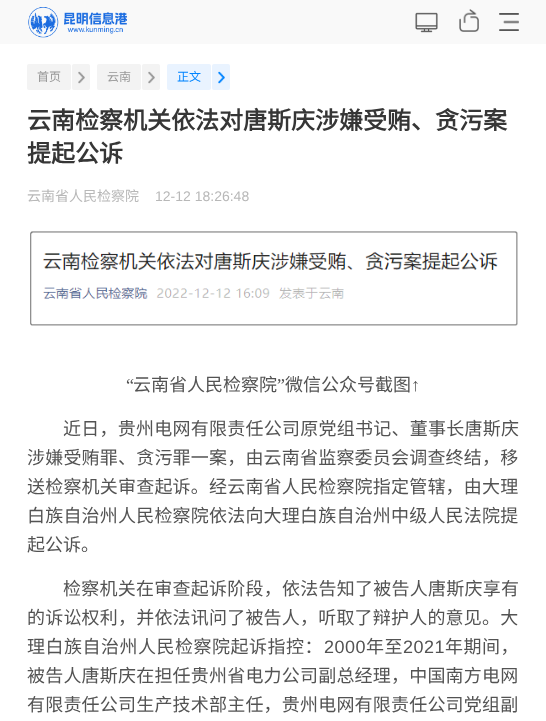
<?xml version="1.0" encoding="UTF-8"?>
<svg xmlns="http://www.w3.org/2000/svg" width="546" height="721">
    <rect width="100%" height="100%" fill="#FFFFFF"/>
    <rect x="0" y="0" width="546" height="44" fill="#F9F9F9"/>
    <image x="28" y="7" width="99" height="31" href="img_01.png"/>
    <image x="415" y="12" width="23" height="21" href="img_02.png"/>
    <image x="459" y="9" width="20" height="23" href="img_03.png"/>
    <image x="499" y="13" width="20" height="18" href="img_04.png"/>
    <rect x="27" y="64" width="44" height="26" rx="2" fill="#F3F3F3"/>
    <text x="37" y="81" font-family="Noto Sans CJK SC" font-size="12" fill="#989898">首页</text>
    <rect x="72" y="64" width="18" height="26" rx="2" fill="#F3F3F3"/>
    <image x="78" y="71" width="7" height="13" href="img_05.png"/>
    <rect x="97" y="64" width="44" height="26" rx="2" fill="#F3F3F3"/>
    <text x="107" y="81" font-family="Noto Sans CJK SC" font-size="12" fill="#989898">云南</text>
    <rect x="142" y="64" width="18" height="26" rx="2" fill="#F3F3F3"/>
    <image x="148" y="71" width="7" height="13" href="img_05.png"/>
    <rect x="167" y="64" width="44" height="26" rx="2" fill="#E9F3FF"/>
    <text x="177" y="81" font-family="Noto Sans CJK SC" font-size="12" fill="#0084FF">正文</text>
    <rect x="212" y="64" width="18" height="26" rx="2" fill="#E9F3FF"/>
    <image x="218" y="71" width="7" height="13" href="img_06.png"/>
    <text font-family="Noto Sans CJK SC" font-size="24" font-weight="700" fill="#363636">
        <tspan x="27" y="129">云南检察机关依法对唐斯庆涉嫌受贿、贪污案</tspan>
        <tspan x="27" y="162">提起公诉</tspan>
    </text>
    <text x="27" y="201" font-family="Noto Sans CJK SC" font-size="14" fill="#B8B8B8">云南省人民检察院</text>
    <text x="155" y="201" font-family="Liberation Sans" font-size="14" fill="#B8B8B8">12-12 18:26:48</text>
    <image x="30" y="231" width="488" height="95" href="img_07.png"/>
    <text x="126" y="391" font-family="Liberation Serif" font-size="18" fill="#535353">“</text>
    <text x="133" y="391" font-family="Noto Sans CJK SC" font-size="18" fill="#535353">云南省人民检察院</text>
    <text x="277" y="391" font-family="Liberation Serif" font-size="18" fill="#535353">”</text>
    <text x="285" y="391" font-family="Noto Sans CJK SC" font-size="18" fill="#535353">微信公众号截图</text>
    <text x="411" y="391" font-family="Liberation Serif" font-size="18" fill="#535353">↑</text>
    <text x="63" y="435" font-family="Noto Sans CJK SC" font-size="18" letter-spacing="0.25" fill="#535353">近日，贵州电网有限责任公司原党组书记、董事长唐斯庆</text>
    <text font-family="Noto Sans CJK SC" font-size="18" letter-spacing="0.2" fill="#535353">
        <tspan x="27" y="464">涉嫌受贿罪、贪污罪一案，由云南省监察委员会调查终结，移</tspan>
        <tspan x="27" y="493">送检察机关审查起诉。经云南省人民检察院指定管辖，由大理</tspan>
        <tspan x="27" y="522">白族自治州人民检察院依法向大理白族自治州中级人民法院提</tspan>
    </text>
    <text x="27" y="551" font-family="Noto Sans CJK SC" font-size="18" fill="#535353">起公诉。</text>
    <text x="63" y="595" font-family="Noto Sans CJK SC" font-size="18" letter-spacing="0.25" fill="#535353">检察机关在审查起诉阶段，依法告知了被告人唐斯庆享有</text>
    <text x="27" y="624" font-family="Noto Sans CJK SC" font-size="18" letter-spacing="0.2" fill="#535353">的诉讼权利，并依法讯问了被告人，听取了辩护人的意见。大</text>
    <text x="27" y="653" font-family="Noto Sans CJK SC" font-size="18" letter-spacing="0.5" fill="#535353">理白族自治州人民检察院起诉指控：</text>
    <text x="324" y="653" font-family="Liberation Sans" font-size="18" letter-spacing="0.5" fill="#535353">2000</text>
    <text x="366" y="653" font-family="Noto Sans CJK SC" font-size="18" letter-spacing="0.5" fill="#535353">年至</text>
    <text x="403" y="653" font-family="Liberation Sans" font-size="18" letter-spacing="0.5" fill="#535353">2021</text>
    <text x="445" y="653" font-family="Noto Sans CJK SC" font-size="18" letter-spacing="0.5" fill="#535353">年期间，</text>
    <text font-family="Noto Sans CJK SC" font-size="18" letter-spacing="0.2" fill="#535353">
        <tspan x="27" y="682">被告人唐斯庆在担任贵州省电力公司副总经理，中国南方电网</tspan>
        <tspan x="27" y="711">有限责任公司生产技术部主任，贵州电网有限责任公司党组副</tspan>
    </text>
</svg>
